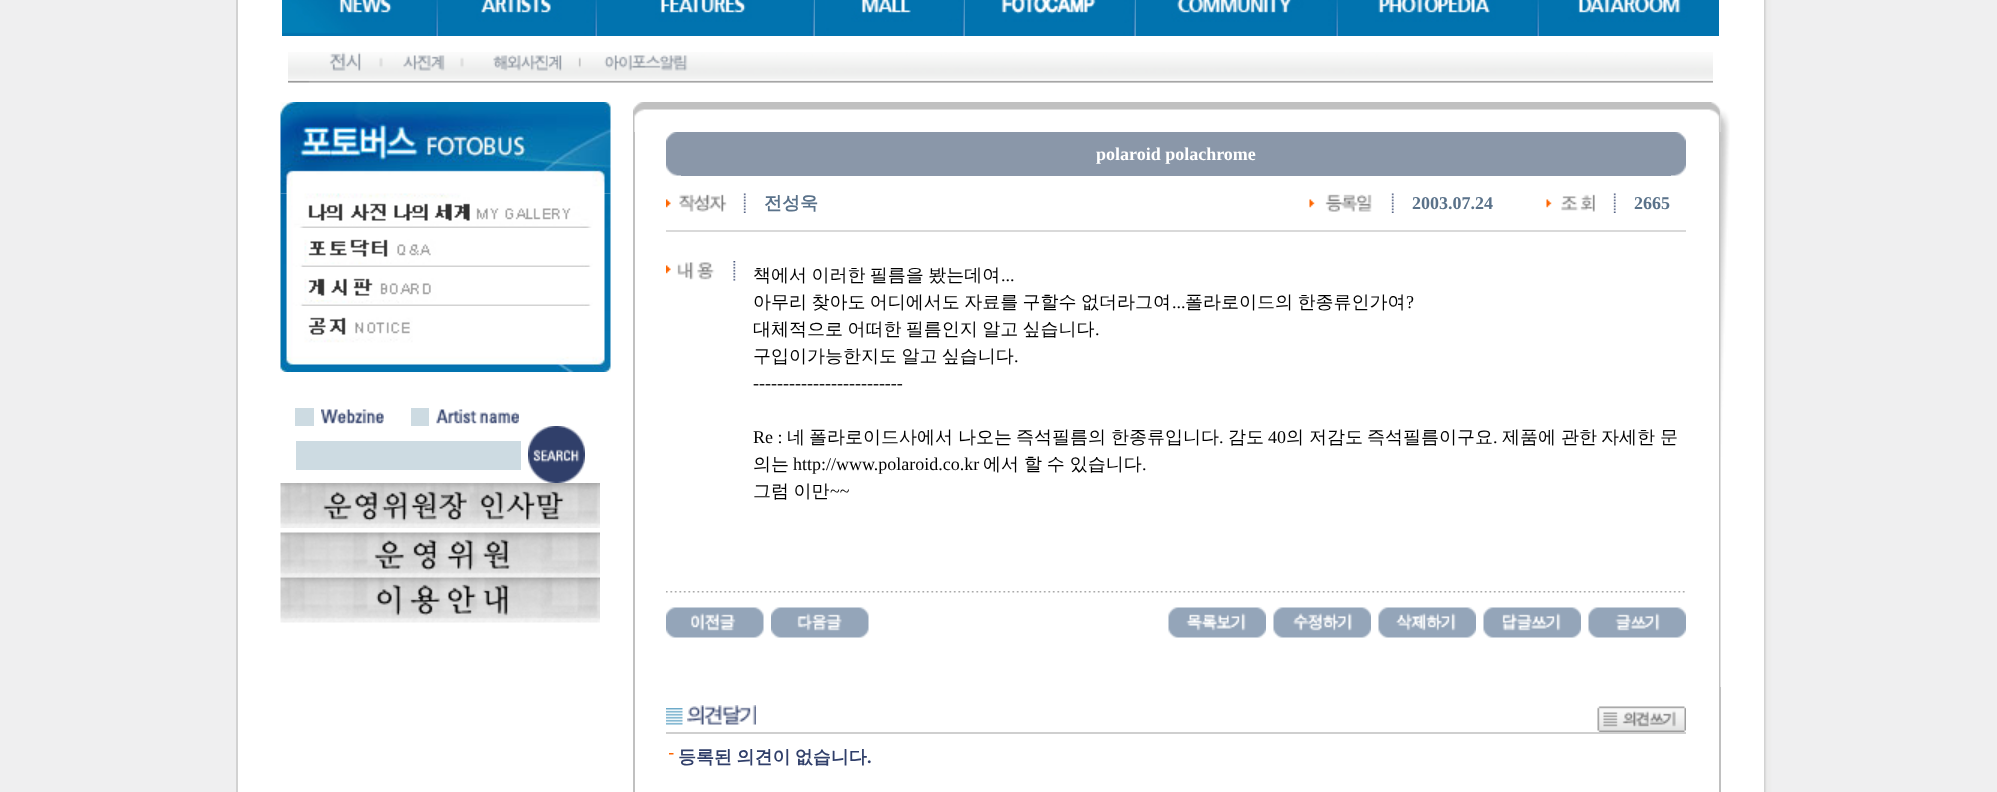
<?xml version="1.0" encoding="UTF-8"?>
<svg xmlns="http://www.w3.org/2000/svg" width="1997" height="792">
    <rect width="100%" height="100%" fill="#FFFFFF"/>
    <rect x="0" y="0" width="236" height="792" fill="#EFEFF0"/>
    <rect x="236" y="0" width="2" height="792" fill="#D2D2D2"/>
    <image x="282" y="0" width="156" height="36" href="img_01.png"/>
    <image x="438" y="0" width="159" height="36" href="img_02.png"/>
    <image x="597" y="0" width="218" height="36" href="img_03.png"/>
    <image x="814" y="0" width="151" height="36" href="img_04.png"/>
    <image x="964" y="0" width="172" height="36" href="img_05.png"/>
    <image x="1135" y="0" width="203" height="36" href="img_06.png"/>
    <image x="1338" y="0" width="201" height="36" href="img_07.png"/>
    <image x="1539" y="0" width="180" height="36" href="img_08.png"/>
    <image x="288" y="52" width="1425" height="31" href="img_09.png"/>
    <image x="280" y="102" width="331" height="92" href="img_10.png"/>
    <image x="280" y="193" width="331" height="35" href="img_11.png"/>
    <image x="280" y="228" width="331" height="39" href="img_12.png"/>
    <image x="280" y="267" width="331" height="39" href="img_13.png"/>
    <image x="280" y="306" width="331" height="39" href="img_14.png"/>
    <image x="280" y="345" width="331" height="27" href="img_15.png"/>
    <rect x="295" y="408" width="19" height="18" fill="#CDDBE2"/>
    <image x="321" y="409" width="63" height="15" href="img_16.png"/>
    <rect x="411" y="408" width="18" height="18" fill="#CDDBE2"/>
    <image x="436" y="409" width="83" height="15" href="img_17.png"/>
    <rect x="296" y="441" width="225" height="29" fill="#CDDBE2"/>
    <image x="528" y="426" width="57" height="57" href="img_18.png"/>
    <image x="280" y="483" width="320" height="45" href="img_19.png"/>
    <image x="280" y="532" width="320" height="46" href="img_20.png"/>
    <image x="280" y="577" width="320" height="46" href="img_21.png"/>
    <image x="633" y="102" width="1088" height="30" href="img_22.png"/>
    <rect x="633" y="132" width="2" height="660" fill="#C0C0C0"/>
    <image x="666" y="132" width="15" height="44" href="img_23.png"/>
    <rect x="681" y="132" width="990" height="44" fill="#8A97A9"/>
    <text x="1096" y="160" font-family="Liberation Serif" font-size="18" font-weight="700" fill="#FFFFFF">polaroid polachrome</text>
    <image x="1671" y="132" width="15" height="44" href="img_24.png"/>
    <image x="666" y="193" width="80" height="20" href="img_25.png"/>
    <text x="764" y="209" font-family="WenQuanYi Zen Hei" font-size="18" font-weight="700" fill="#5A728A">전성욱</text>
    <image x="1309" y="193" width="85" height="20" href="img_26.png"/>
    <text x="1412" y="209" font-family="Liberation Serif" font-size="18" font-weight="700" fill="#5A728A">2003.07.24</text>
    <image x="1546" y="193" width="70" height="20" href="img_27.png"/>
    <text x="1634" y="209" font-family="Liberation Serif" font-size="18" font-weight="700" fill="#5A728A">2665</text>
    <rect x="666" y="230" width="1020" height="2" fill="#D9D9D9"/>
    <image x="666" y="261" width="70" height="20" href="img_28.png"/>
    <text x="753" y="281" word-spacing="-1" font-family="WenQuanYi Zen Hei" font-size="18" font-weight="500" fill="#000000">책에서 이러한 필름을 봤는데여</text>
    <text x="1001" y="281" font-family="Liberation Serif" font-size="18" fill="#000000">...</text>
    <text x="753" y="308" word-spacing="-1" font-family="WenQuanYi Zen Hei" font-size="18" font-weight="500" fill="#000000">아무리 찾아도 어디에서도 자료를 구할수 없더라그여</text>
    <text x="1172" y="308" font-family="Liberation Serif" font-size="18" fill="#000000">...</text>
    <text x="1185" y="308" word-spacing="-1" font-family="WenQuanYi Zen Hei" font-size="18" font-weight="500" fill="#000000">폴라로이드의 한종류인가여</text>
    <text x="1406" y="308" font-family="Liberation Serif" font-size="18" fill="#000000">?</text>
    <text x="753" y="335" word-spacing="-1" font-family="WenQuanYi Zen Hei" font-size="18" font-weight="500" fill="#000000">대체적으로 어떠한 필름인지 알고 싶습니다</text>
    <text x="1095" y="335" font-family="Liberation Serif" font-size="18" fill="#000000">.</text>
    <text x="753" y="362" word-spacing="-1" font-family="WenQuanYi Zen Hei" font-size="18" font-weight="500" fill="#000000">구입이가능한지도 알고 싶습니다</text>
    <text x="1014" y="362" font-family="Liberation Serif" font-size="18" fill="#000000">.</text>
    <text x="753" y="389" font-family="Liberation Serif" font-size="18" fill="#000000">-------------------------</text>
    <text x="753" y="443" font-family="Liberation Serif" font-size="18" fill="#000000">Re :</text>
    <text x="787" y="443" font-family="WenQuanYi Zen Hei" font-size="18" font-weight="500" fill="#000000">네</text>
    <text x="809" y="443" font-family="WenQuanYi Zen Hei" font-size="18" font-weight="500" fill="#000000">폴라로이드사에서</text>
    <text x="958" y="443" font-family="WenQuanYi Zen Hei" font-size="18" font-weight="500" fill="#000000">나오는</text>
    <text x="1016" y="443" font-family="WenQuanYi Zen Hei" font-size="18" font-weight="500" fill="#000000">즉석필름의</text>
    <text x="1111" y="443" font-family="WenQuanYi Zen Hei" font-size="18" font-weight="500" fill="#000000">한종류입니다</text>
    <text x="1219" y="443" font-family="Liberation Serif" font-size="18" fill="#000000">.</text>
    <text x="1228" y="443" font-family="WenQuanYi Zen Hei" font-size="18" font-weight="500" fill="#000000">감도</text>
    <text x="1268" y="443" font-family="Liberation Serif" font-size="18" fill="#000000">40</text>
    <text x="1286" y="443" font-family="WenQuanYi Zen Hei" font-size="18" font-weight="500" fill="#000000">의</text>
    <text x="1309" y="443" font-family="WenQuanYi Zen Hei" font-size="18" font-weight="500" fill="#000000">저감도</text>
    <text x="1367" y="443" font-family="WenQuanYi Zen Hei" font-size="18" font-weight="500" fill="#000000">즉석필름이구요</text>
    <text x="1493" y="443" font-family="Liberation Serif" font-size="18" fill="#000000">.</text>
    <text x="1502" y="443" font-family="WenQuanYi Zen Hei" font-size="18" font-weight="500" fill="#000000">제품에</text>
    <text x="1561" y="443" font-family="WenQuanYi Zen Hei" font-size="18" font-weight="500" fill="#000000">관한</text>
    <text x="1601" y="443" font-family="WenQuanYi Zen Hei" font-size="18" font-weight="500" fill="#000000">자세한</text>
    <text x="1660" y="443" font-family="WenQuanYi Zen Hei" font-size="18" font-weight="500" fill="#000000">문</text>
    <text x="753" y="470" font-family="WenQuanYi Zen Hei" font-size="18" font-weight="500" fill="#000000">의는</text>
    <text x="793" y="470" font-family="Liberation Serif" font-size="18" fill="#000000">http://www.polaroid.co.kr</text>
    <text x="983" y="470" word-spacing="-0.5" font-family="WenQuanYi Zen Hei" font-size="18" font-weight="500" fill="#000000">에서 할 수 있습니다</text>
    <text x="1142" y="470" font-family="Liberation Serif" font-size="18" fill="#000000">.</text>
    <text x="753" y="497" word-spacing="-1" font-family="WenQuanYi Zen Hei" font-size="18" font-weight="500" fill="#000000">그럼 이만</text>
    <text x="830" y="497" font-family="Liberation Serif" font-size="18" fill="#000000">~~</text>
    <image x="666" y="591" width="1019" height="2" href="img_29.png"/>
    <image x="666" y="607" width="98" height="31" href="img_30.png"/>
    <image x="771" y="607" width="98" height="31" href="img_31.png"/>
    <image x="1168" y="607" width="98" height="31" href="img_32.png"/>
    <image x="1273" y="607" width="98" height="31" href="img_33.png"/>
    <image x="1378" y="607" width="98" height="31" href="img_34.png"/>
    <image x="1483" y="607" width="98" height="31" href="img_35.png"/>
    <image x="1588" y="607" width="98" height="31" href="img_36.png"/>
    <image x="666" y="708" width="17" height="17" href="img_37.png"/>
    <image x="687" y="705" width="69" height="20" href="img_38.png"/>
    <image x="1597" y="706" width="89" height="26" href="img_39.png"/>
    <rect x="666" y="732" width="1020" height="2" fill="#CFCFCF"/>
    <image x="669" y="753" width="5" height="2" href="img_40.png"/>
    <text x="678" y="763" word-spacing="-1" font-family="WenQuanYi Zen Hei" font-size="18" font-weight="700" fill="#303F6A">등록된 의견이 없습니다</text>
    <text x="867" y="763" font-family="Liberation Serif" font-size="18" font-weight="700" fill="#303F6A">.</text>
    <rect x="1719" y="132" width="2" height="660" fill="#C0C0C0"/>
    <image x="1720" y="109" width="10" height="578" href="img_41.png"/>
    <image x="1764" y="0" width="233" height="792" href="img_42.png"/>
</svg>
